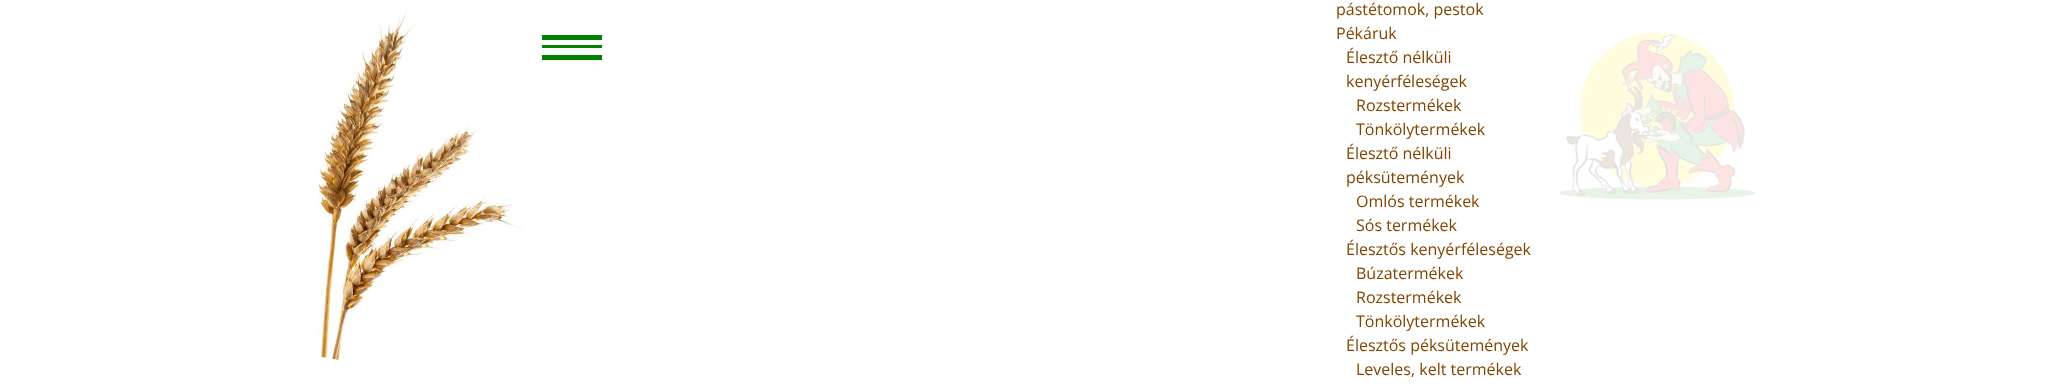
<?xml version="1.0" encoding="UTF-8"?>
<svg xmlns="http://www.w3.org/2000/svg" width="2051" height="391">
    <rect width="100%" height="100%" fill="#FFFFFF"/>
    <image x="313" y="9" width="1443" height="351" href="img_01.png"/>
    <rect x="542" y="45" width="60" height="3" fill="#008000"/>
    <rect x="542" y="35" width="60" height="5" fill="#008000"/>
    <rect x="542" y="55" width="60" height="5" fill="#008000"/>
    <text font-family="Open Sans" font-size="16" fill="#824400">
        <tspan x="1336" y="15">pástétomok, pestok</tspan>
        <tspan x="1336" y="39">Pékáruk</tspan>
    </text>
    <text font-family="Open Sans" font-size="16" fill="#824400">
        <tspan x="1346" y="63">Élesztő nélküli</tspan>
        <tspan x="1346" y="87">kenyérféleségek</tspan>
    </text>
    <text font-family="Open Sans" font-size="16" fill="#824400">
        <tspan x="1356" y="111">Rozstermékek</tspan>
        <tspan x="1356" y="135">Tönkölytermékek</tspan>
    </text>
    <text font-family="Open Sans" font-size="16" fill="#824400">
        <tspan x="1346" y="159">Élesztő nélküli</tspan>
        <tspan x="1346" y="183">péksütemények</tspan>
    </text>
    <text font-family="Open Sans" font-size="16" fill="#824400">
        <tspan x="1356" y="207">Omlós termékek</tspan>
        <tspan x="1356" y="231">Sós termékek</tspan>
    </text>
    <text x="1346" y="255" font-family="Open Sans" font-size="16" fill="#824400">Élesztős kenyérféleségek</text>
    <text font-family="Open Sans" font-size="16" fill="#824400">
        <tspan x="1356" y="279">Búzatermékek</tspan>
        <tspan x="1356" y="303">Rozstermékek</tspan>
        <tspan x="1356" y="327">Tönkölytermékek</tspan>
    </text>
    <text x="1346" y="351" font-family="Open Sans" font-size="16" fill="#824400">Élesztős péksütemények</text>
    <text x="1356" y="375" font-family="Open Sans" font-size="16" fill="#824400">Leveles, kelt termékek</text>
</svg>
